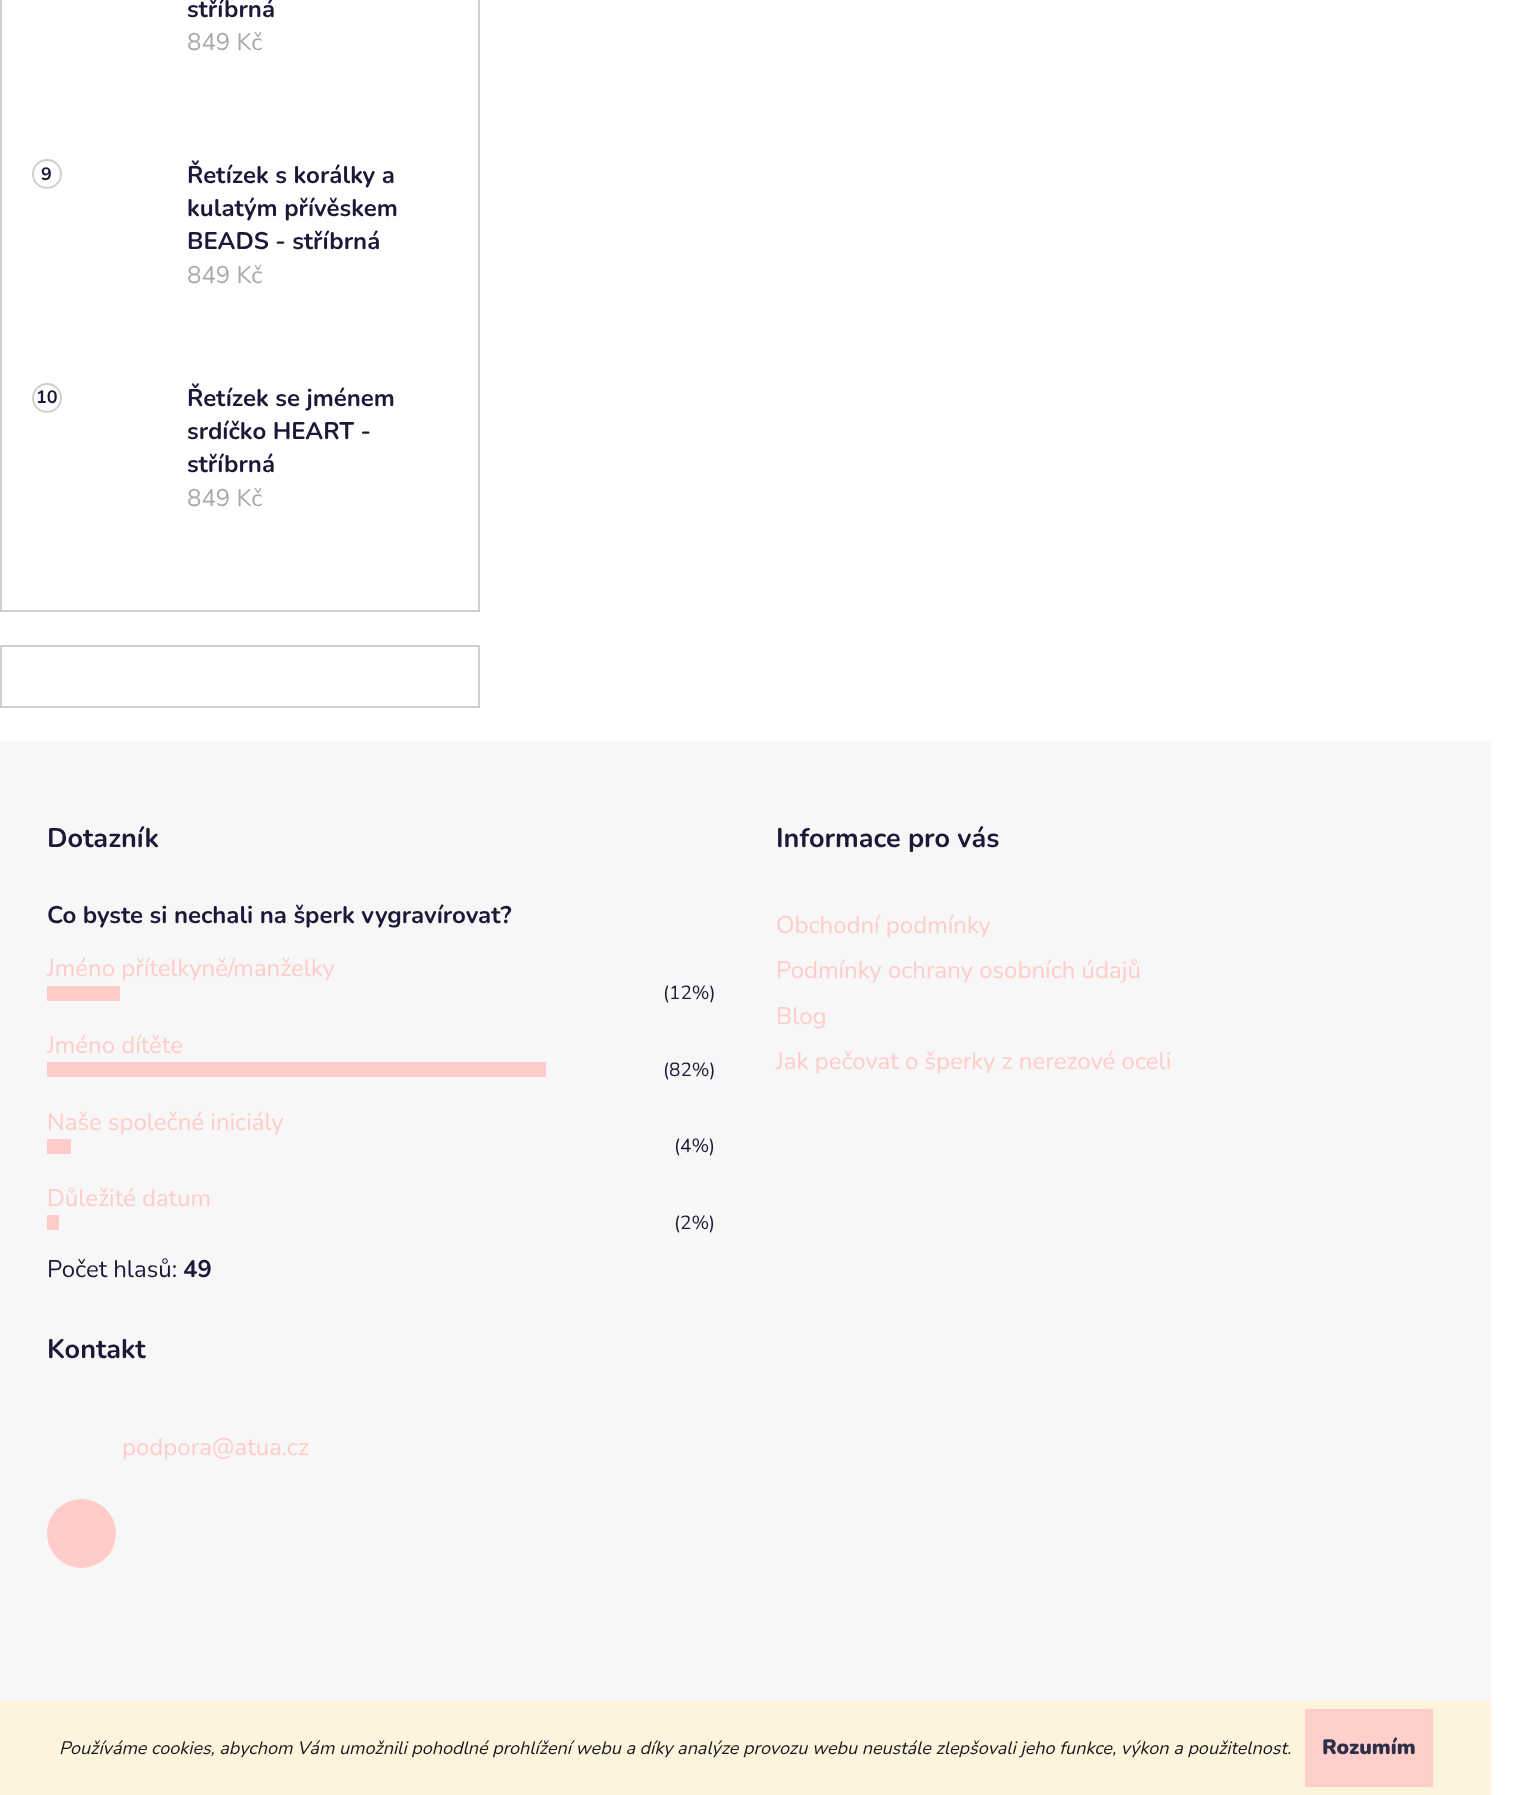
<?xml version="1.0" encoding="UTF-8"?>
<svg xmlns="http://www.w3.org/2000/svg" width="1513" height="1795">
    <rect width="100%" height="100%" fill="#FFFFFF"/>
    <rect x="1" y="-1" width="478" height="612" fill="none" stroke="#CFCFCF" stroke-width="2"/>
    <text x="187" y="17" font-family="Nunito" font-size="24" font-weight="700" fill="#1A1937">stříbrná</text>
    <text x="187" y="50" font-family="Nunito" font-size="24" fill="#AAAAAA">849 Kč</text>
    <circle cx="47" cy="174" r="14" fill="none" stroke="#CFCFCF" stroke-width="2"/>
    <text x="41" y="180" font-family="Nunito" font-size="18" font-weight="700" fill="#1A1937">9</text>
    <text font-family="Nunito" font-size="24" font-weight="700" fill="#1A1937">
        <tspan x="187" y="183">Řetízek s korálky a</tspan>
        <tspan x="187" y="216">kulatým přívěskem</tspan>
        <tspan x="187" y="249">BEADS - stříbrná</tspan>
    </text>
    <text x="187" y="283" font-family="Nunito" font-size="24" fill="#AAAAAA">849 Kč</text>
    <circle cx="47" cy="398" r="14" fill="none" stroke="#CFCFCF" stroke-width="2"/>
    <text x="36" y="403" font-family="Nunito" font-size="18" font-weight="700" fill="#1A1937">10</text>
    <text font-family="Nunito" font-size="24" font-weight="700" fill="#1A1937">
        <tspan x="187" y="406">Řetízek se jménem</tspan>
        <tspan x="187" y="439">srdíčko HEART -</tspan>
        <tspan x="187" y="472">stříbrná</tspan>
    </text>
    <text x="187" y="506" font-family="Nunito" font-size="24" fill="#AAAAAA">849 Kč</text>
    <rect x="1" y="646" width="478" height="61" fill="none" stroke="#CFCFCF" stroke-width="2"/>
    <rect x="0" y="741" width="1491" height="1040" fill="#F7F7F7"/>
    <text x="47" y="847" font-family="Nunito" font-size="27" font-weight="700" fill="#1A1937">Dotazník</text>
    <text x="47" y="923" font-family="Nunito" font-size="24" font-weight="700" fill="#1A1937">Co byste si nechali na šperk vygravírovat?</text>
    <text x="47" y="976" font-family="Nunito" font-size="24" fill="#FFCCC9">Jméno přítelkyně/manželky</text>
    <rect x="47" y="986" width="73" height="15" fill="#FFCCC9"/>
    <text x="663" y="999" font-family="Nunito" font-size="19" fill="#1A1937">(12%)</text>
    <text x="47" y="1053" font-family="Nunito" font-size="24" fill="#FFCCC9">Jméno dítěte</text>
    <rect x="47" y="1062" width="499" height="15" fill="#FFCCC9"/>
    <text x="663" y="1076" font-family="Nunito" font-size="19" fill="#1A1937">(82%)</text>
    <text x="47" y="1130" font-family="Nunito" font-size="24" fill="#FFCCC9">Naše společné iniciály</text>
    <rect x="47" y="1139" width="24" height="15" fill="#FFCCC9"/>
    <text x="674" y="1152" font-family="Nunito" font-size="19" fill="#1A1937">(4%)</text>
    <text x="47" y="1206" font-family="Nunito" font-size="24" fill="#FFCCC9">Důležité datum</text>
    <rect x="47" y="1215" width="12" height="15" fill="#FFCCC9"/>
    <text x="674" y="1229" font-family="Nunito" font-size="19" fill="#1A1937">(2%)</text>
    <text x="47" y="1277" font-family="Nunito" font-size="24" fill="#1A1937">Počet hlasů:</text>
    <text x="183" y="1277" font-family="Nunito" font-size="24" font-weight="700" fill="#1A1937">49</text>
    <text x="776" y="847" font-family="Nunito" font-size="27" font-weight="700" fill="#1A1937">Informace pro vás</text>
    <text font-family="Nunito" font-size="24" fill="#FFCCC9">
        <tspan x="776" y="933">Obchodní podmínky</tspan>
        <tspan x="776" y="978">Podmínky ochrany osobních údajů</tspan>
        <tspan x="776" y="1024">Blog</tspan>
        <tspan x="776" y="1069">Jak pečovat o šperky z nerezové oceli</tspan>
    </text>
    <text x="47" y="1358" font-family="Nunito" font-size="27" font-weight="700" fill="#1A1937">Kontakt</text>
    <text x="122" y="1455" font-family="Nunito" font-size="24" fill="#FFCCC9">podpora@atua.cz</text>
    <circle cx="81.5" cy="1533.5" r="34.5" fill="#FFCCC9"/>
    <rect x="0" y="1700" width="1491" height="95" fill="#FDF3DA" fill-opacity="0.9"/>
    <text x="59" y="1754" font-family="Nunito" font-size="18" font-style="italic" fill="#191919">Používáme cookies, abychom Vám umožnili pohodlné prohlížení webu a díky analýze provozu webu neustále zlepšovali jeho funkce, výkon a použitelnost.</text>
    <rect x="1306" y="1710" width="126" height="76" fill="#FFD0CB" stroke="#FFCCC9" stroke-width="2"/>
    <text x="1322" y="1754" font-family="Nunito" font-size="21" font-weight="900" fill="#302F4A">Rozumím</text>
</svg>
